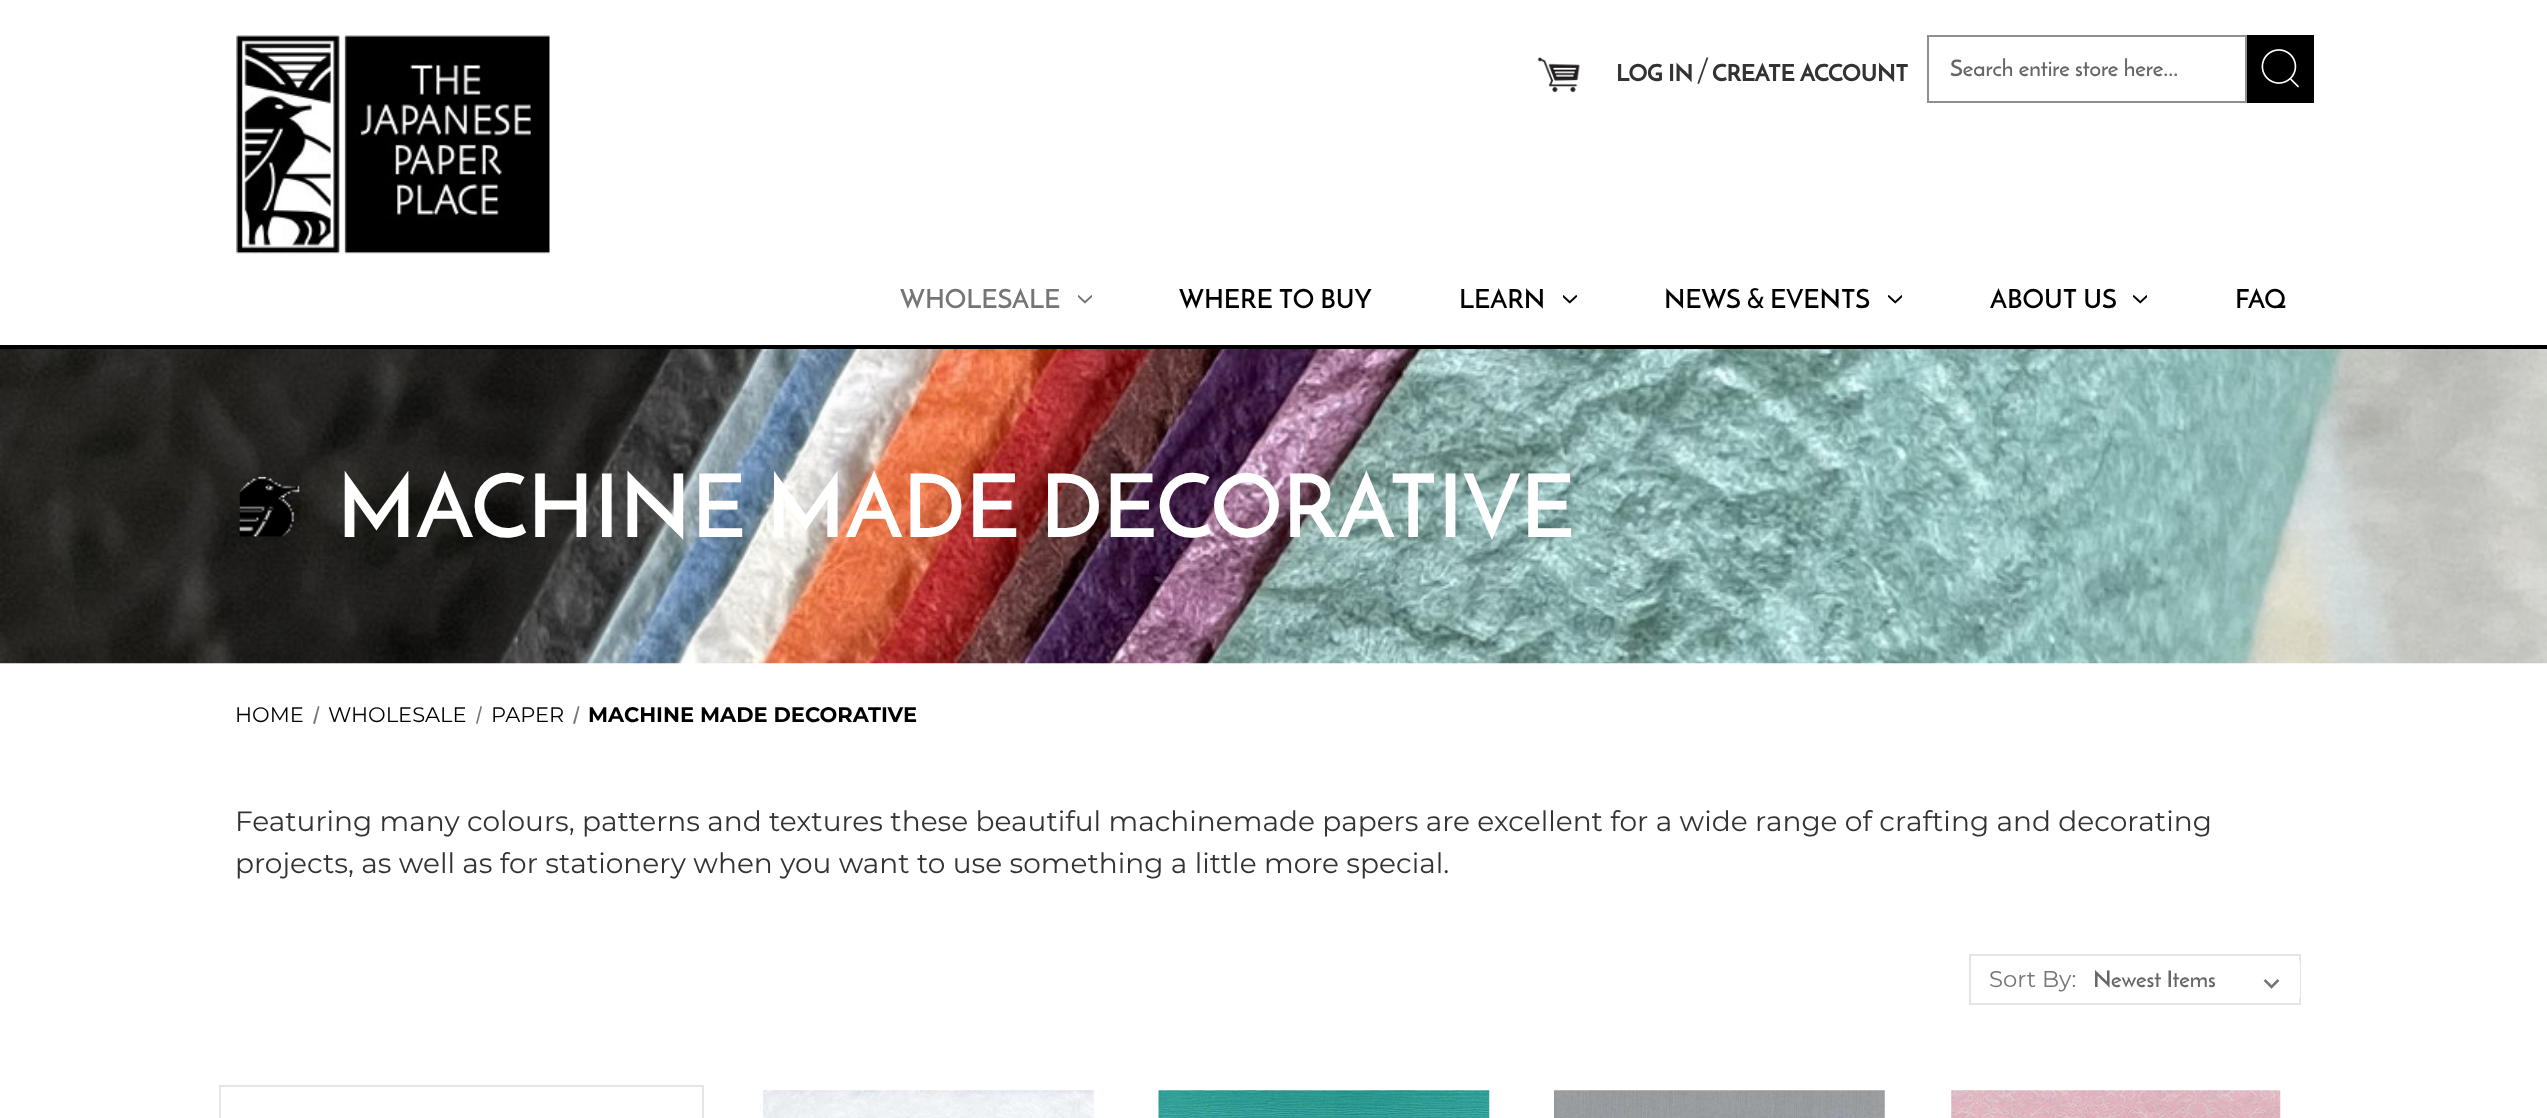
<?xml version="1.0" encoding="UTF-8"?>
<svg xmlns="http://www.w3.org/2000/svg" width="2547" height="1118">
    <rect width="100%" height="100%" fill="#FFFFFF"/>
    <rect x="0" y="345" width="2547" height="4" fill="#000000"/>
    <image x="236" y="35" width="314" height="219" href="img_01.png"/>
    <image x="1537" y="57" width="43" height="36" href="img_02.png"/>
    <text x="1616" y="81" font-family="Reem Kufi" font-size="22.75" font-weight="700" fill="#333333">LOG IN</text>
    <text x="1698" y="81" font-family="Montserrat" font-size="28" fill="#333333">/</text>
    <text x="1712" y="81" font-family="Reem Kufi" font-size="22.75" font-weight="700" fill="#333333">CREATE ACCOUNT</text>
    <rect x="1928" y="36" width="318" height="66" fill="none" stroke="#8F8F8F" stroke-width="2"/>
    <text x="1950" y="76" font-family="Reem Kufi" font-size="22.75" fill="#666666">Search entire store here...</text>
    <rect x="2247" y="35" width="67" height="68" fill="#000000"/>
    <image x="2261" y="49" width="38" height="39" href="img_03.png"/>
    <text x="900" y="308" font-family="Reem Kufi" font-size="26.25" fill="#757575">WHOLESALE</text>
    <image x="1078" y="295" width="14" height="9" href="img_04.png"/>
    <text x="1179" y="308" font-family="Reem Kufi" font-size="26.25" fill="#000000">WHERE TO BUY</text>
    <text x="1459" y="308" font-family="Reem Kufi" font-size="26.25" fill="#000000">LEARN</text>
    <image x="1563" y="295" width="14" height="9" href="img_05.png"/>
    <text x="1664" y="308" font-family="Reem Kufi" font-size="26.25" fill="#000000">NEWS &amp; EVENTS</text>
    <image x="1888" y="295" width="14" height="9" href="img_06.png"/>
    <text x="1990" y="308" font-family="Reem Kufi" font-size="26.25" fill="#000000">ABOUT US</text>
    <image x="2133" y="295" width="14" height="9" href="img_06.png"/>
    <text x="2235" y="308" font-family="Reem Kufi" font-size="26.25" fill="#000000">FAQ</text>
    <image x="0" y="349" width="2547" height="315" href="img_07.png"/>
    <image x="239" y="476" width="61" height="61" href="img_08.png"/>
    <text x="337" y="537" font-family="Reem Kufi" font-size="87.5" letter-spacing="0.4" fill="#FFFFFF">MACHINE MADE DECORATIVE</text>
    <text x="235" y="722" font-family="Montserrat" font-size="21" fill="#000000">HOME</text>
    <path d="M 318 706 L 319.5 706.5 L 315 724 L 313 723.5 Z" fill="#757575"/>
    <text x="328" y="722" font-family="Montserrat" font-size="21" fill="#000000">WHOLESALE</text>
    <path d="M 480.5 706 L 482 706.5 L 477.5 724 L 476 723.5 Z" fill="#757575"/>
    <text x="491" y="722" font-family="Montserrat" font-size="21" fill="#000000">PAPER</text>
    <path d="M 578 706 L 579.5 706.5 L 575 724 L 573 723.5 Z" fill="#757575"/>
    <text x="588" y="722" font-family="Montserrat" font-size="21" font-weight="700" fill="#000000">MACHINE MADE DECORATIVE</text>
    <text font-family="Montserrat" font-size="28" fill="#333333">
        <tspan x="235" y="831">Featuring many colours, patterns and textures these beautiful machinemade papers are excellent for a wide range of crafting and decorating</tspan>
        <tspan x="235" y="873">projects, as well as for stationery when you want to use something a little more special.</tspan>
    </text>
    <rect x="1970" y="955" width="330" height="49" fill="none" stroke="#E5E5E5" stroke-width="2"/>
    <text x="1989" y="987" font-family="Montserrat" font-size="22.75" fill="#757575">Sort By:</text>
    <rect x="2090" y="956" width="210" height="47" rx="7" fill="#FFFFFF"/>
    <image x="2263" y="979" width="17" height="10" href="img_09.png"/>
    <text x="2093" y="987" font-family="Reem Kufi" font-size="22.75" fill="#666666">Newest Items</text>
    <rect x="220" y="1086" width="483" height="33" fill="none" stroke="#E5E5E5" stroke-width="2"/>
    <image x="763" y="1090" width="331" height="28" href="img_10.png"/>
    <image x="1158" y="1090" width="332" height="28" href="img_11.png"/>
    <image x="1554" y="1090" width="331" height="28" href="img_12.png"/>
    <image x="1951" y="1090" width="330" height="28" href="img_13.png"/>
</svg>
